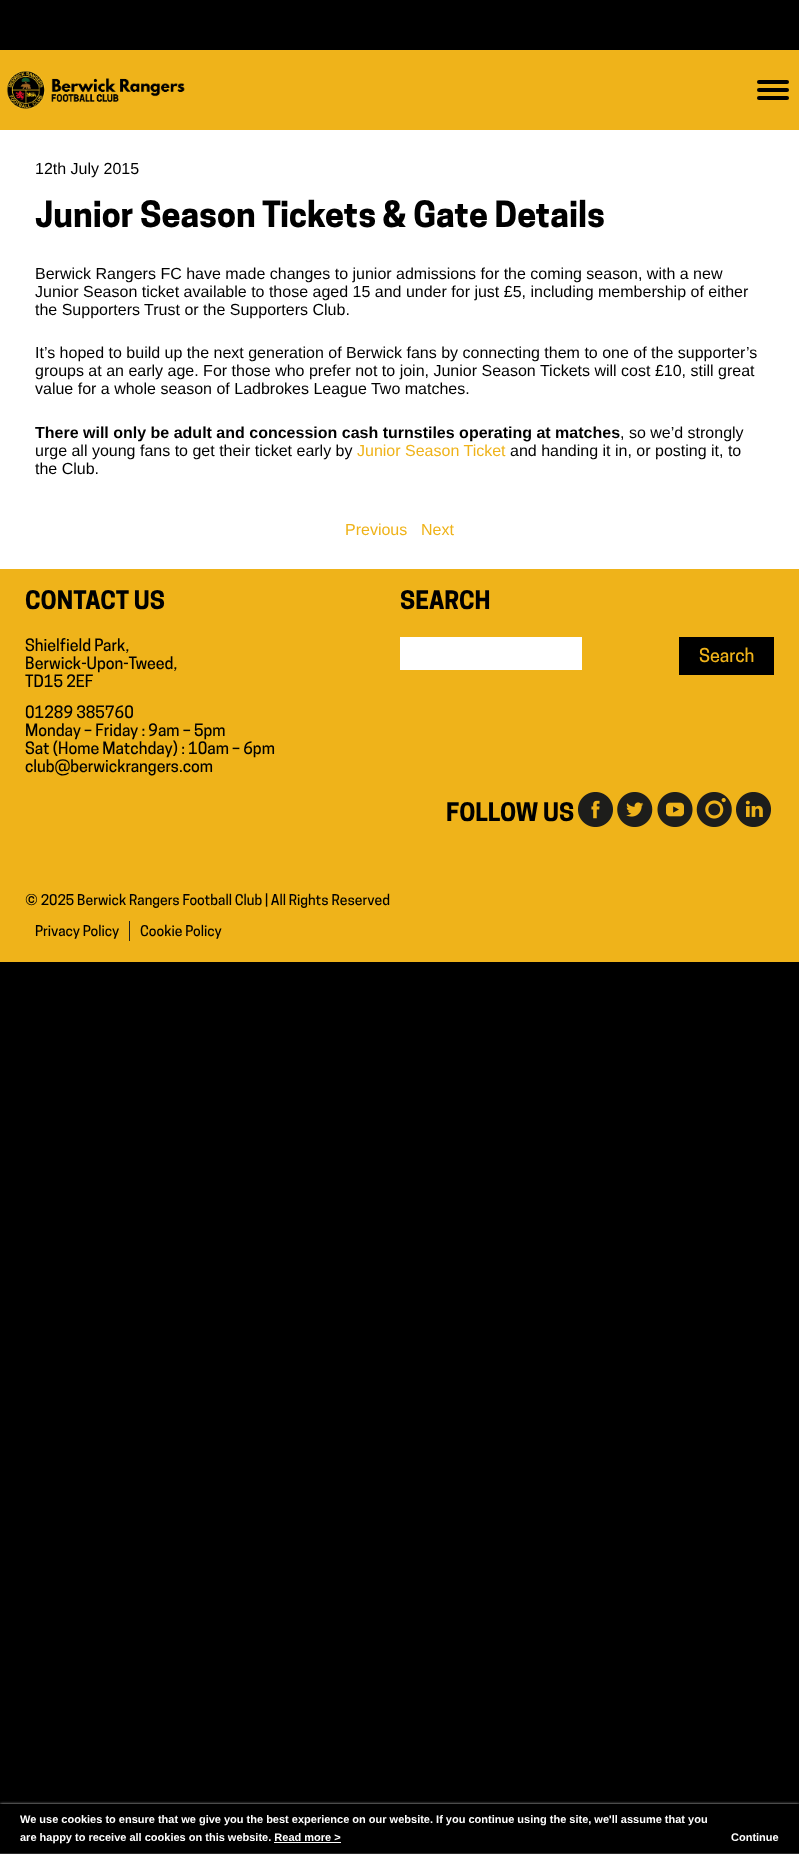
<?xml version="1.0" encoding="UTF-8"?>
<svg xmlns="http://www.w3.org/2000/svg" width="799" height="1854">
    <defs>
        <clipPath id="clip1"><rect x="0" y="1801" width="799" height="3"/></clipPath>
        <filter id="blur1" x="-50%" y="-200%" width="200%" height="500%"><feGaussianBlur stdDeviation="1.5"/></filter>
    </defs>
    <rect width="100%" height="100%" fill="#000000"/>
    <rect x="0" y="50" width="799" height="80" fill="#EFB31A"/>
    <image x="6" y="71" width="179" height="38" href="img_01.png"/>
    <rect x="757" y="80" width="32" height="4" rx="2" fill="#000000"/>
    <rect x="757" y="88" width="32" height="4" rx="2" fill="#000000"/>
    <rect x="757" y="96" width="32" height="4" rx="2" fill="#000000"/>
    <rect x="0" y="130" width="799" height="439" fill="#FFFFFF"/>
    <text x="35" y="174" font-family="Liberation Sans" font-size="16" fill="#000000">12th July 2015</text>
    <text x="35" y="227" font-family="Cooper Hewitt" font-size="34" font-weight="700" fill="#000000">Junior Season Tickets &amp; Gate Details</text>
    <text font-family="Liberation Sans" font-size="16" fill="#000000">
        <tspan x="35" y="279">Berwick Rangers FC have made changes to junior admissions for the coming season, with a new</tspan>
        <tspan x="35" y="297">Junior Season ticket available to those aged 15 and under for just £5, including membership of either</tspan>
        <tspan x="35" y="315">the Supporters Trust or the Supporters Club.</tspan>
    </text>
    <text font-family="Liberation Sans" font-size="16" fill="#000000">
        <tspan x="35" y="358">It’s hoped to build up the next generation of Berwick fans by connecting them to one of the supporter’s</tspan>
        <tspan x="35" y="376">groups at an early age. For those who prefer not to join, Junior Season Tickets will cost £10, still great</tspan>
        <tspan x="35" y="394">value for a whole season of Ladbrokes League Two matches.</tspan>
    </text>
    <text x="35" y="438" font-family="Liberation Sans" font-size="16" font-weight="700" fill="#000000">There will only be adult and concession cash turnstiles operating at matches</text>
    <text x="620" y="438" font-family="Liberation Sans" font-size="16" fill="#000000">, so we’d strongly</text>
    <text x="35" y="456" font-family="Liberation Sans" font-size="16" fill="#000000">urge all young fans to get their ticket early by</text>
    <text x="357" y="456" font-family="Liberation Sans" font-size="16" fill="#EFB31A">Junior Season Ticket</text>
    <text x="510" y="456" font-family="Liberation Sans" font-size="16" fill="#000000">and handing it in, or posting it, to</text>
    <text x="35" y="474" font-family="Liberation Sans" font-size="16" fill="#000000">the Club.</text>
    <text x="345" y="535" font-family="Liberation Sans" font-size="16" fill="#EFB31A">Previous</text>
    <text x="421" y="535" font-family="Liberation Sans" font-size="16" fill="#EFB31A">Next</text>
    <rect x="0" y="569" width="799" height="393" fill="#EFB31A"/>
    <text x="25" y="609" font-family="Cooper Hewitt" font-size="24" font-weight="700" fill="#000000">CONTACT US</text>
    <text font-family="Cooper Hewitt" font-size="16" font-weight="500" fill="#000000">
        <tspan x="25" y="651">Shielfield Park,</tspan>
        <tspan x="25" y="669">Berwick-Upon-Tweed,</tspan>
        <tspan x="25" y="687">TD15 2EF</tspan>
        <tspan x="25" y="718">01289 385760</tspan>
        <tspan x="25" y="736">Monday – Friday : 9am – 5pm</tspan>
        <tspan x="25" y="754">Sat (Home Matchday) : 10am – 6pm</tspan>
        <tspan x="25" y="772">club@berwickrangers.com</tspan>
    </text>
    <text x="400" y="609" font-family="Cooper Hewitt" font-size="24" font-weight="700" fill="#000000">SEARCH</text>
    <rect x="400" y="637" width="182" height="33" fill="#FFFFFF"/>
    <rect x="679" y="637" width="95" height="38" fill="#000000"/>
    <text x="699" y="662" font-family="Cooper Hewitt" font-size="18" font-weight="500" fill="#EFB31A">Search</text>
    <text x="446" y="821" font-family="Cooper Hewitt" font-size="24" font-weight="700" fill="#000000">FOLLOW US</text>
    <image x="578" y="792" width="35" height="35" href="img_02.png"/>
    <image x="617" y="792" width="36" height="35" href="img_03.png"/>
    <image x="657" y="792" width="36" height="35" href="img_04.png"/>
    <image x="696" y="792" width="36" height="35" href="img_05.png"/>
    <image x="736" y="792" width="35" height="35" href="img_06.png"/>
    <text x="25" y="905" font-family="Cooper Hewitt" font-size="14" font-weight="500" fill="#000000">© 2025 Berwick Rangers Football Club | All Rights Reserved</text>
    <text x="35" y="936" font-family="Cooper Hewitt" font-size="14" font-weight="500" fill="#000000">Privacy Policy</text>
    <rect x="129" y="921" width="1" height="20" fill="#222222"/>
    <text x="140" y="936" font-family="Cooper Hewitt" font-size="14" font-weight="500" fill="#000000">Cookie Policy</text>
    <g clip-path="url(#clip1)">
        <rect x="0" y="1804" width="799" height="50" fill="#CCCCCC" filter="url(#blur1)"/>
    </g>
    <rect x="0" y="1853" width="799" height="1" fill="#2A2A2A"/>
    <text font-family="Liberation Sans" font-size="11" font-weight="700" fill="#FFFFFF">
        <tspan x="20" y="1823">We use cookies to ensure that we give you the best experience on our website. If you continue using the site, we'll assume that you</tspan>
        <tspan x="20" y="1841">are happy to receive all cookies on this website. Read more &gt;</tspan>
    </text>
    <rect x="274" y="1842" width="67" height="1" fill="#FFFFFF"/>
    <text x="731" y="1841" font-family="Liberation Sans" font-size="11" font-weight="700" fill="#FFFFFF">Continue</text>
</svg>
